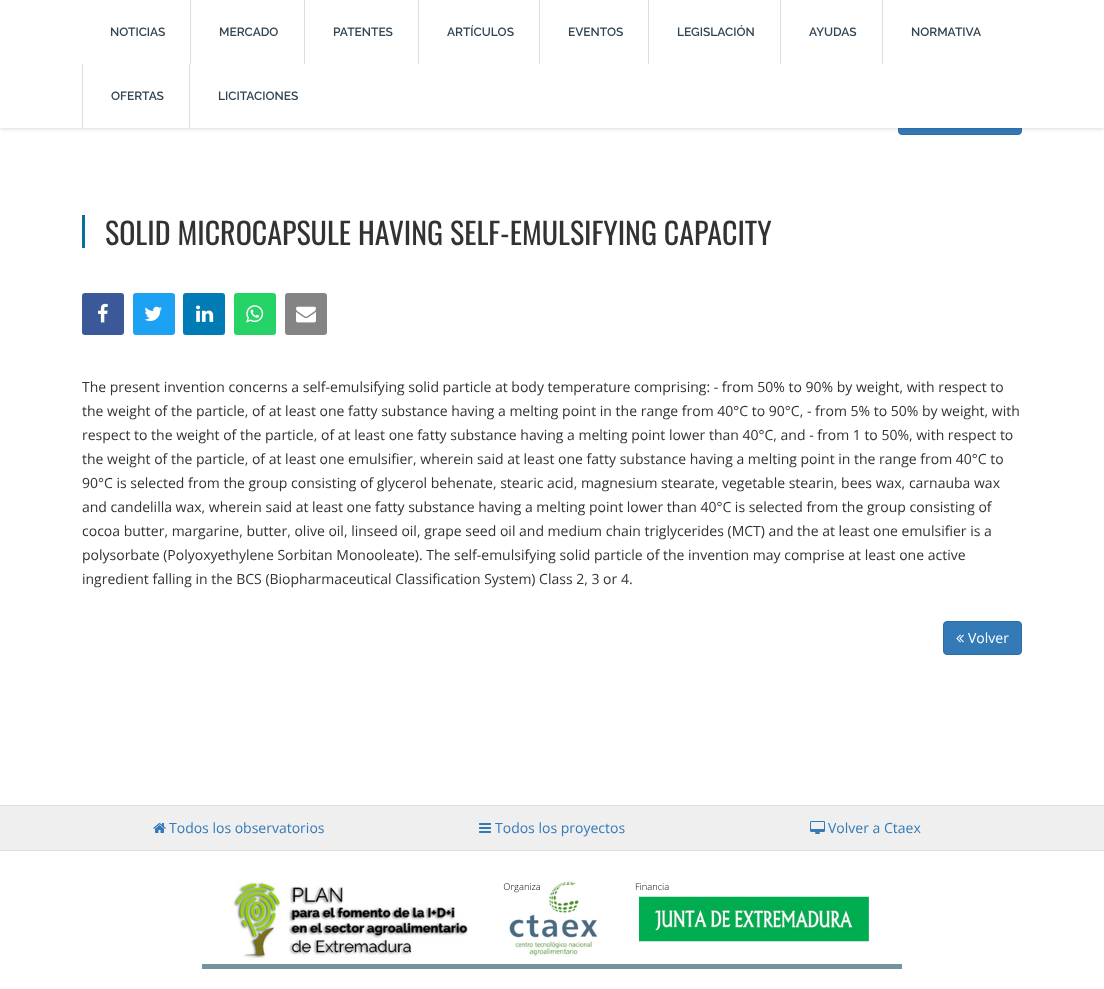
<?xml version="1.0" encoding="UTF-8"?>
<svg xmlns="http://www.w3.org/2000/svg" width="1104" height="989">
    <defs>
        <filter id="blur1" x="-50%" y="-200%" width="200%" height="500%"><feGaussianBlur stdDeviation="2.5"/></filter>
    </defs>
    <rect width="100%" height="100%" fill="#FFFFFF"/>
    <rect x="898.5" y="101.5" width="123" height="33" rx="3.5" fill="#337AB7" stroke="#2E6DA4"/>
    <rect x="0" y="0" width="1104" height="128" fill="#000000" fill-opacity="0.2" filter="url(#blur1)"/>
    <rect x="0" y="0" width="1104" height="128" fill="#FFFFFF"/>
    <text x="110" y="36" font-family="Raleway" font-size="12" font-weight="600" fill="#314555">NOTICIAS</text>
    <rect x="190" y="0" width="1" height="64" fill="#DEDDDD"/>
    <text x="219" y="36" font-family="Raleway" font-size="12" font-weight="600" fill="#314555">MERCADO</text>
    <rect x="304" y="0" width="1" height="64" fill="#DEDDDD"/>
    <text x="333" y="36" font-family="Raleway" font-size="12" font-weight="600" fill="#314555">PATENTES</text>
    <rect x="418" y="0" width="1" height="64" fill="#DEDDDD"/>
    <text x="447" y="36" font-family="Raleway" font-size="12" font-weight="600" fill="#314555">ARTÍCULOS</text>
    <rect x="539" y="0" width="1" height="64" fill="#DEDDDD"/>
    <text x="568" y="36" font-family="Raleway" font-size="12" font-weight="600" fill="#314555">EVENTOS</text>
    <rect x="648" y="0" width="1" height="64" fill="#DEDDDD"/>
    <text x="677" y="36" font-family="Raleway" font-size="12" font-weight="600" fill="#314555">LEGISLACIÓN</text>
    <rect x="780" y="0" width="1" height="64" fill="#DEDDDD"/>
    <text x="809" y="36" font-family="Raleway" font-size="12" font-weight="600" fill="#314555">AYUDAS</text>
    <rect x="882" y="0" width="1" height="64" fill="#DEDDDD"/>
    <text x="911" y="36" font-family="Raleway" font-size="12" font-weight="600" fill="#314555">NORMATIVA</text>
    <rect x="82" y="64" width="1" height="64" fill="#DEDDDD"/>
    <text x="111" y="100" font-family="Raleway" font-size="12" font-weight="600" fill="#314555">OFERTAS</text>
    <rect x="189" y="64" width="1" height="64" fill="#DEDDDD"/>
    <text x="218" y="100" font-family="Raleway" font-size="12" font-weight="600" fill="#314555">LICITACIONES</text>
    <rect x="82" y="215" width="3" height="33" fill="#0A6D9B"/>
    <text x="105" y="245" font-family="Oswald" font-size="30" fill="#323232">SOLID MICROCAPSULE HAVING SELF-EMULSIFYING CAPACITY</text>
    <rect x="82" y="293" width="42" height="42" rx="3" fill="#3B5998"/>
    <image x="98" y="303" width="10" height="20" href="img_01.png"/>
    <rect x="133" y="293" width="42" height="42" rx="3" fill="#1DA1F2"/>
    <image x="144" y="306" width="18" height="15" href="img_02.png"/>
    <rect x="183" y="293" width="42" height="42" rx="3" fill="#007BB5"/>
    <image x="196" y="305" width="18" height="17" href="img_03.png"/>
    <rect x="234" y="293" width="42" height="42" rx="3" fill="#25D366"/>
    <image x="246" y="305" width="18" height="18" href="img_04.png"/>
    <rect x="285" y="293" width="42" height="42" rx="3" fill="#848484"/>
    <image x="296" y="306" width="20" height="17" href="img_05.png"/>
    <text font-family="Open Sans" font-size="14" fill="#323232">
        <tspan x="82" y="392">The present invention concerns a self-emulsifying solid particle at body temperature comprising: - from 50% to 90% by weight, with respect to</tspan>
        <tspan x="82" y="416">the weight of the particle, of at least one fatty substance having a melting point in the range from 40°C to 90°C, - from 5% to 50% by weight, with</tspan>
        <tspan x="82" y="440">respect to the weight of the particle, of at least one fatty substance having a melting point lower than 40°C, and - from 1 to 50%, with respect to</tspan>
        <tspan x="82" y="464">the weight of the particle, of at least one emulsifier, wherein said at least one fatty substance having a melting point in the range from 40°C to</tspan>
        <tspan x="82" y="488">90°C is selected from the group consisting of glycerol behenate, stearic acid, magnesium stearate, vegetable stearin, bees wax, carnauba wax</tspan>
        <tspan x="82" y="512">and candelilla wax, wherein said at least one fatty substance having a melting point lower than 40°C is selected from the group consisting of</tspan>
        <tspan x="82" y="536">cocoa butter, margarine, butter, olive oil, linseed oil, grape seed oil and medium chain triglycerides (MCT) and the at least one emulsifier is a</tspan>
        <tspan x="82" y="560">polysorbate (Polyoxyethylene Sorbitan Monooleate). The self-emulsifying solid particle of the invention may comprise at least one active</tspan>
        <tspan x="82" y="584">ingredient falling in the BCS (Biopharmaceutical Classification System) Class 2, 3 or 4.</tspan>
    </text>
    <rect x="943.5" y="621.5" width="78" height="33" rx="3.5" fill="#337AB7" stroke="#2E6DA4"/>
    <image x="956" y="634" width="8" height="9" href="img_06.png"/>
    <text x="968" y="643" font-family="Open Sans" font-size="14" fill="#FFFFFF">Volver</text>
    <rect x="0" y="806" width="1104" height="44" fill="#EFEFEF"/>
    <rect x="0" y="805" width="1104" height="1" fill="#E0DFDF"/>
    <image x="153" y="823" width="13" height="10" href="img_07.png"/>
    <text x="169" y="833" font-family="Open Sans" font-size="14" fill="#337AB7">Todos los observatorios</text>
    <image x="479" y="823" width="12" height="10" href="img_08.png"/>
    <text x="495" y="833" font-family="Open Sans" font-size="14" fill="#337AB7">Todos los proyectos</text>
    <image x="810" y="821" width="15" height="13" href="img_09.png"/>
    <text x="828" y="833" font-family="Open Sans" font-size="14" fill="#337AB7">Volver a Ctaex</text>
    <rect x="0" y="850" width="1104" height="1" fill="#E0DFDF"/>
    <image x="202" y="881" width="700" height="88" href="img_10.png"/>
</svg>
